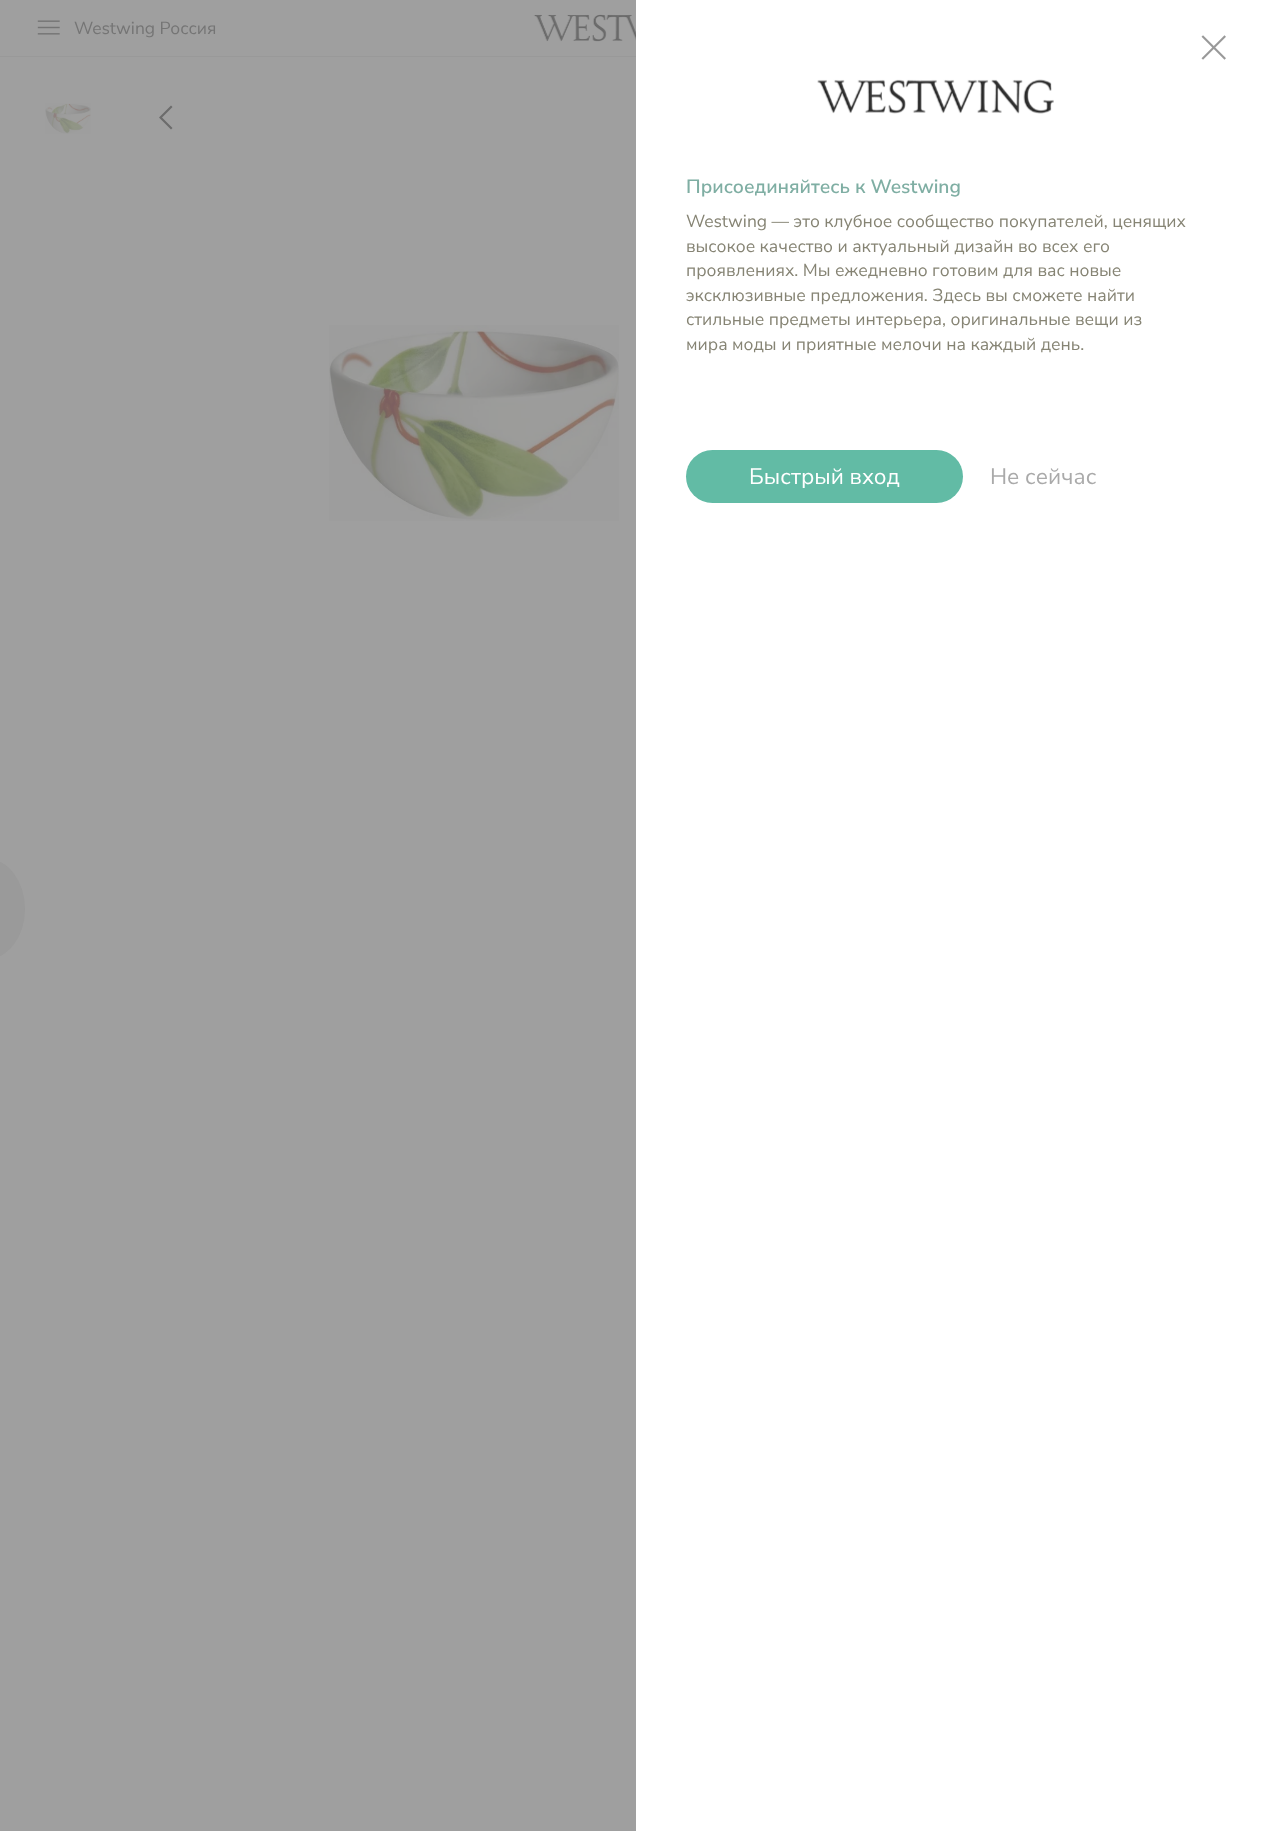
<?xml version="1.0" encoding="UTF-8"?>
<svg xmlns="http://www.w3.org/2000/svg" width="1261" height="1831">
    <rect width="100%" height="100%" fill="#9F9F9F"/>
    <image x="37" y="20" width="23" height="15" href="img_01.png"/>
    <text x="74" y="34" font-family="Nunito Sans" font-size="17.5" fill="#757575">Westwing Россия</text>
    <image x="533" y="14" width="103" height="28" href="img_02.png"/>
    <rect x="0" y="56" width="636" height="1" fill="#999999"/>
    <image x="45" y="103" width="46" height="31" href="img_03.png"/>
    <path d="M 171 129.5 L 159 117.5 L 171 105.5 L 172.5 107 L 162 117.5 L 172.5 128 Z" fill="#6C6C6C"/>
    <image x="329" y="325" width="290" height="196" href="img_04.png"/>
    <rect x="-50" y="859" width="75" height="100" rx="50" fill="#9A9A9A"/>
    <rect x="636" y="0" width="625" height="1831" fill="#FFFFFF"/>
    <image x="1201" y="35" width="25" height="25" href="img_05.png"/>
    <image x="817" y="79" width="237" height="35" href="img_06.png"/>
    <text x="686" y="193" font-family="Nunito Sans" font-size="19.25" font-weight="600" fill="#7FAEA3">Присоединяйтесь к Westwing</text>
    <text font-family="Nunito Sans" font-size="17.5" fill="#868474">
        <tspan x="686" y="227">Westwing — это клубное сообщество покупателей, ценящих</tspan>
        <tspan x="686" y="252">высокое качество и актуальный дизайн во всех его</tspan>
        <tspan x="686" y="276">проявлениях. Мы ежедневно готовим для вас новые</tspan>
        <tspan x="686" y="301">эксклюзивные предложения. Здесь вы сможете найти</tspan>
        <tspan x="686" y="325">стильные предметы интерьера, оригинальные вещи из</tspan>
        <tspan x="686" y="350">мира моды и приятные мелочи на каждый день.</tspan>
    </text>
    <rect x="686" y="450" width="277" height="53" rx="26.5" fill="#62BBA5"/>
    <text x="749" y="484" font-family="Nunito Sans" font-size="22.5" fill="#FFFFFF">Быстрый вход</text>
    <text x="990" y="484" font-family="Nunito Sans" font-size="22.5" fill="#AAAAAA">Не сейчас</text>
</svg>
